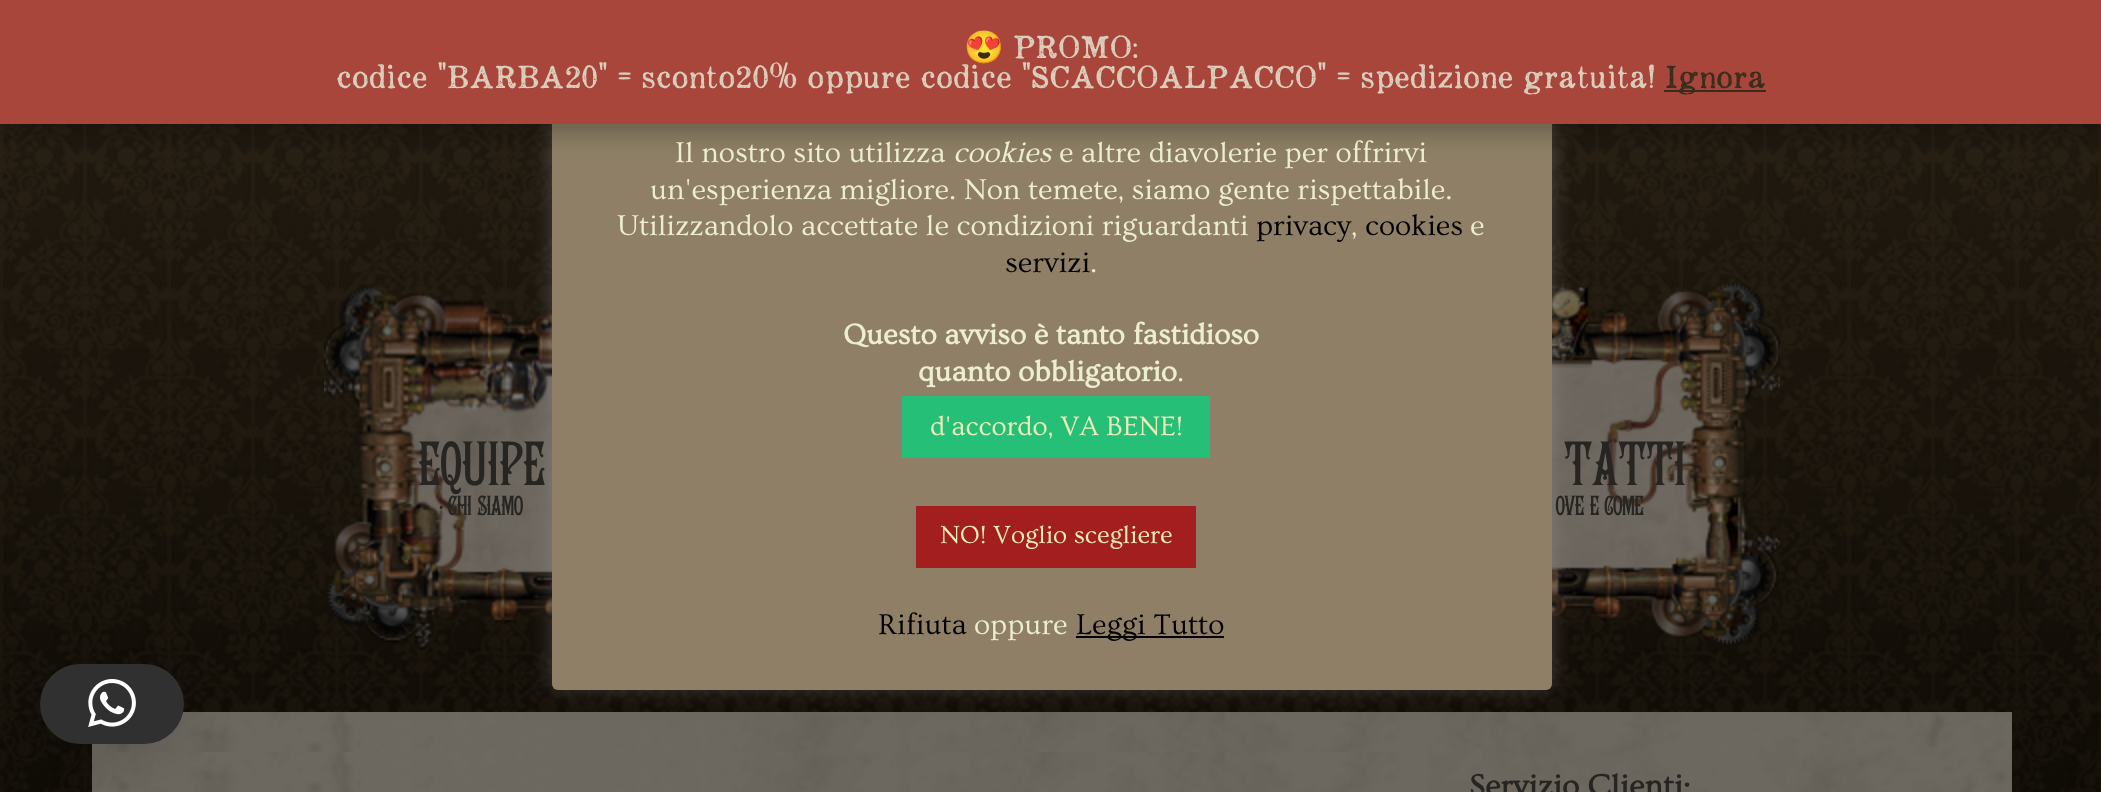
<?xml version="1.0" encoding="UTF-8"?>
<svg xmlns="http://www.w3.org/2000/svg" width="2101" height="792">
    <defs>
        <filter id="blur1" x="-50%" y="-200%" width="200%" height="500%"><feGaussianBlur stdDeviation="10"/></filter>
        <filter id="blur2" x="-50%" y="-200%" width="200%" height="500%"><feGaussianBlur stdDeviation="16"/></filter>
        <filter id="blur3" x="-50%" y="-200%" width="200%" height="500%"><feGaussianBlur stdDeviation="32"/></filter>
    </defs>
    <rect width="100%" height="100%" fill="#FFFFFF"/>
    <image x="0" y="124" width="2101" height="668" href="img_01.png"/>
    <image x="324" y="275" width="1456" height="375" href="img_03.png"/>
    <image x="92" y="712" width="1920" height="80" href="img_04.png"/>
    <image x="112" y="712" width="1316" height="40" href="img_05.png"/>
    <rect x="552" y="80" width="1000" height="608" rx="6" fill="#ACABAB" fill-opacity="0.3" filter="url(#blur1)"/>
    <rect x="552" y="82" width="1000" height="608" rx="6" fill="#8E7F66"/>
    <rect x="0" y="2" width="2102" height="124" fill="#000000" fill-opacity="0.2" filter="url(#blur2)"/>
    <rect x="0" y="2" width="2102" height="124" fill="#000000" fill-opacity="0.2" filter="url(#blur2)"/>
    <rect x="0" y="0" width="2101" height="124" fill="#A9463B"/>
    <text x="964" y="58" font-family="Noto Color Emoji" font-size="32" fill="#DBD0BE">😍</text>
    <text x="1013" y="58" font-family="'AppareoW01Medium'" font-size="32" font-weight="500" fill="#DBD0BE">PROMO:</text>
    <text x="336" y="88" font-family="'AppareoW01Medium'" font-size="32" font-weight="500" fill="#DBD0BE">codice "BARBA20" = sconto20% oppure codice "SCACCOALPACCO" = spedizione gratuita!</text>
    <rect x="1664" y="90" width="102" height="2" fill="#382D1B"/>
    <text x="1665" y="88" font-family="'AppareoW01Medium'" font-size="32" font-weight="500" fill="#382D1B">Ignora</text>
    <text x="675" y="162" font-family="Ovo" font-size="30" fill="#EDEDD0">Il nostro sito utilizza</text>
    <text x="953" y="162" font-family="Ovo" font-size="30" font-style="italic" fill="#EDEDD0">cookies</text>
    <text x="1059" y="162" font-family="Ovo" font-size="30" fill="#EDEDD0">e altre diavolerie per offrirvi</text>
    <text x="650" y="199" font-family="Ovo" font-size="30" fill="#EDEDD0">un'esperienza migliore. Non temete, siamo gente rispettabile.</text>
    <text x="617" y="235" font-family="Ovo" font-size="30" fill="#EDEDD0">Utilizzandolo accettate le condizioni riguardanti</text>
    <text x="1256" y="235" font-family="Ovo" font-size="30" fill="#000000">privacy</text>
    <text x="1351" y="235" font-family="Ovo" font-size="30" fill="#EDEDD0">,</text>
    <text x="1365" y="235" font-family="Ovo" font-size="30" fill="#000000">cookies</text>
    <text x="1470" y="235" font-family="Ovo" font-size="30" fill="#EDEDD0">e</text>
    <text x="1005" y="272" font-family="Ovo" font-size="30" fill="#000000">servizi</text>
    <text x="1090" y="272" font-family="Ovo" font-size="30" fill="#EDEDD0">.</text>
    <text x="843" y="344" font-family="Ovo" font-size="30" font-weight="700" fill="#EDEDD0">Questo avviso è tanto fastidioso</text>
    <text x="918" y="381" font-family="Ovo" font-size="30" font-weight="700" fill="#EDEDD0">quanto obbligatorio</text>
    <text x="1177" y="381" font-family="Ovo" font-size="30" fill="#EDEDD0">.</text>
    <rect x="902" y="396" width="308" height="62" fill="#26BF77"/>
    <text x="930" y="435" font-family="Ovo" font-size="28" fill="#EDEDBB">d'accordo, VA BENE!</text>
    <rect x="916" y="506" width="280" height="62" fill="#A31F1F"/>
    <text x="940" y="543" font-family="Ovo" font-size="26" fill="#EDEDBB">NO! Voglio scegliere</text>
    <text x="878" y="634" font-family="Ovo" font-size="30" fill="#000000">Rifiuta</text>
    <text x="974" y="634" font-family="Ovo" font-size="30" fill="#EDEDD0">oppure</text>
    <rect x="1076" y="636" width="148" height="2" fill="#000000"/>
    <text x="1076" y="634" font-family="Ovo" font-size="30" fill="#000000">Leggi Tutto</text>
    <image x="112" y="752" width="1316" height="40" href="img_06.png"/>
    <rect x="40" y="668" width="144" height="80" rx="40" fill="#000000" fill-opacity="0.16" filter="url(#blur3)"/>
    <rect x="40" y="664" width="144" height="80" rx="40" fill="#303030"/>
    <image x="88" y="679" width="48" height="48" href="img_02.png"/>
    <text x="417" y="485" font-family="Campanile" font-size="54" letter-spacing="-2" fill="#262521">EQUIPE</text>
    <text x="439" y="515" font-family="Campanile" font-size="24" letter-spacing="-2" fill="#262521">• CHI SIAMO</text>
    <text x="1563" y="485" font-family="Campanile" font-size="54" letter-spacing="-2" fill="#262521">TATTI</text>
    <text x="1555" y="515" font-family="Campanile" font-size="24" letter-spacing="-2" fill="#262521">OVE E COME</text>
    <text x="1469" y="796" font-family="Ovo" font-size="32" font-weight="700" fill="#262521">Servizio Clienti:</text>
</svg>
